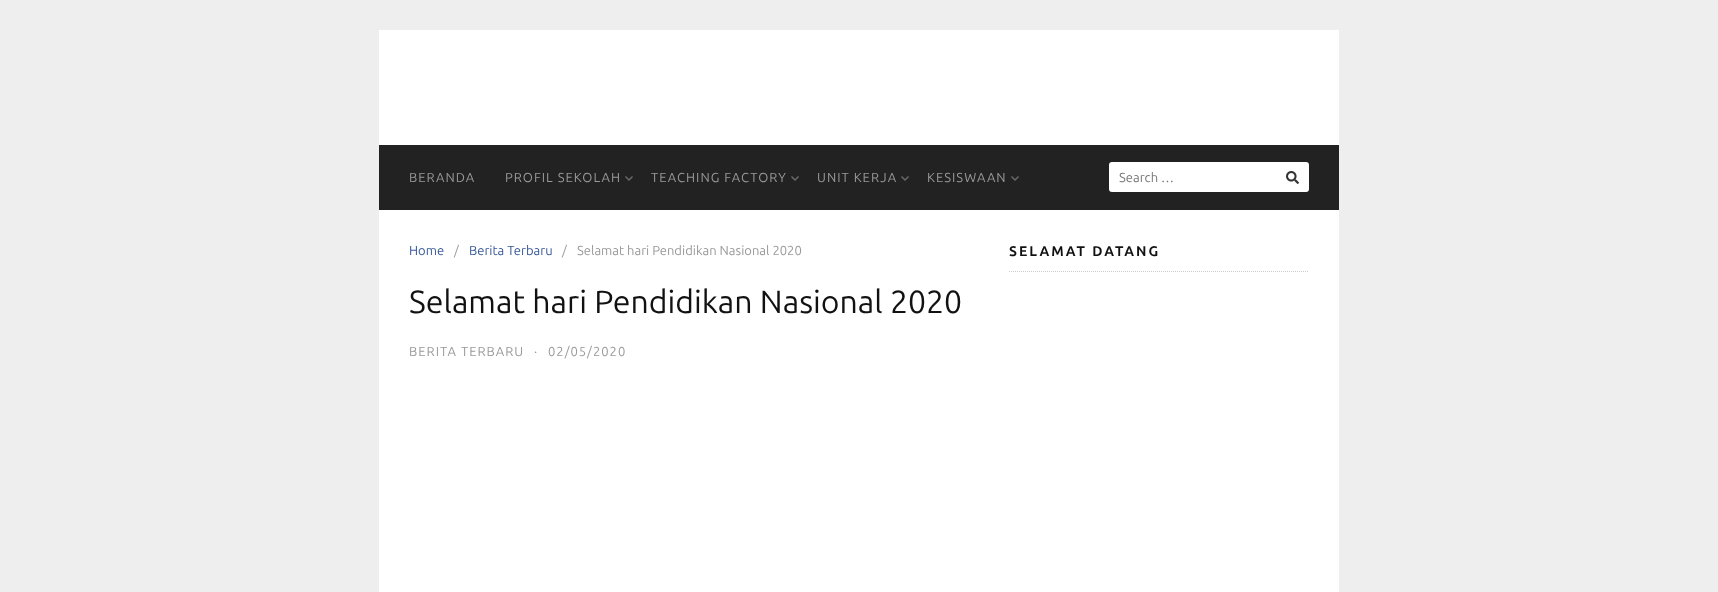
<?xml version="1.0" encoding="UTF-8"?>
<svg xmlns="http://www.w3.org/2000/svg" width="1718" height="592">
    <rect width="100%" height="100%" fill="#EEEEEE"/>
    <rect x="379" y="30" width="960" height="115" fill="#FFFFFF"/>
    <rect x="379" y="210" width="960" height="382" fill="#FFFFFF"/>
    <rect x="379" y="145" width="960" height="65" fill="#222222"/>
    <text x="409" y="182" font-family="Ubuntu" font-size="13" letter-spacing="1" fill="#999999">BERANDA</text>
    <text x="505" y="182" font-family="Ubuntu" font-size="13" letter-spacing="1" fill="#999999">PROFIL SEKOLAH</text>
    <image x="625" y="176" width="8" height="5" href="img_01.png"/>
    <text x="651" y="182" font-family="Ubuntu" font-size="13" letter-spacing="1" fill="#999999">TEACHING FACTORY</text>
    <image x="791" y="176" width="8" height="5" href="img_01.png"/>
    <text x="817" y="182" font-family="Ubuntu" font-size="13" letter-spacing="1" fill="#999999">UNIT KERJA</text>
    <image x="901" y="176" width="8" height="5" href="img_01.png"/>
    <text x="927" y="182" font-family="Ubuntu" font-size="13" letter-spacing="1" fill="#999999">KESISWAAN</text>
    <image x="1011" y="176" width="8" height="5" href="img_01.png"/>
    <rect x="1109" y="162" width="200" height="30" rx="3" fill="#FFFFFF"/>
    <text x="1119" y="182" font-family="Ubuntu" font-size="13" fill="#757575">Search …</text>
    <image x="1286" y="171" width="13" height="13" href="img_02.png"/>
    <text x="409" y="255" font-family="Ubuntu" font-size="13" fill="#365899">Home</text>
    <text x="454" y="255" font-family="Ubuntu" font-size="13" fill="#999999">/</text>
    <text x="469" y="255" font-family="Ubuntu" font-size="13" fill="#365899">Berita Terbaru</text>
    <text x="562" y="255" font-family="Ubuntu" font-size="13" fill="#999999">/</text>
    <text x="577" y="255" font-family="Ubuntu" font-size="13" fill="#999999">Selamat hari Pendidikan Nasional 2020</text>
    <text x="409" y="313" font-family="Ubuntu" font-size="32" fill="#111111">Selamat hari Pendidikan Nasional 2020</text>
    <text x="409" y="356" font-family="Ubuntu" font-size="13" letter-spacing="1" fill="#999999">BERITA TERBARU</text>
    <text x="534" y="356" font-family="Ubuntu" font-size="13" letter-spacing="1" fill="#999999">·</text>
    <text x="548" y="356" font-family="Ubuntu" font-size="13" letter-spacing="1" fill="#999999">02/05/2020</text>
    <path d="M 1009 271.5 H 1309" fill="none" stroke="#CCCCCC" stroke-dasharray="1 1"/>
    <text x="1009" y="256" font-family="Ubuntu" font-size="14" font-weight="700" letter-spacing="2" fill="#111111">SELAMAT DATANG</text>
</svg>
